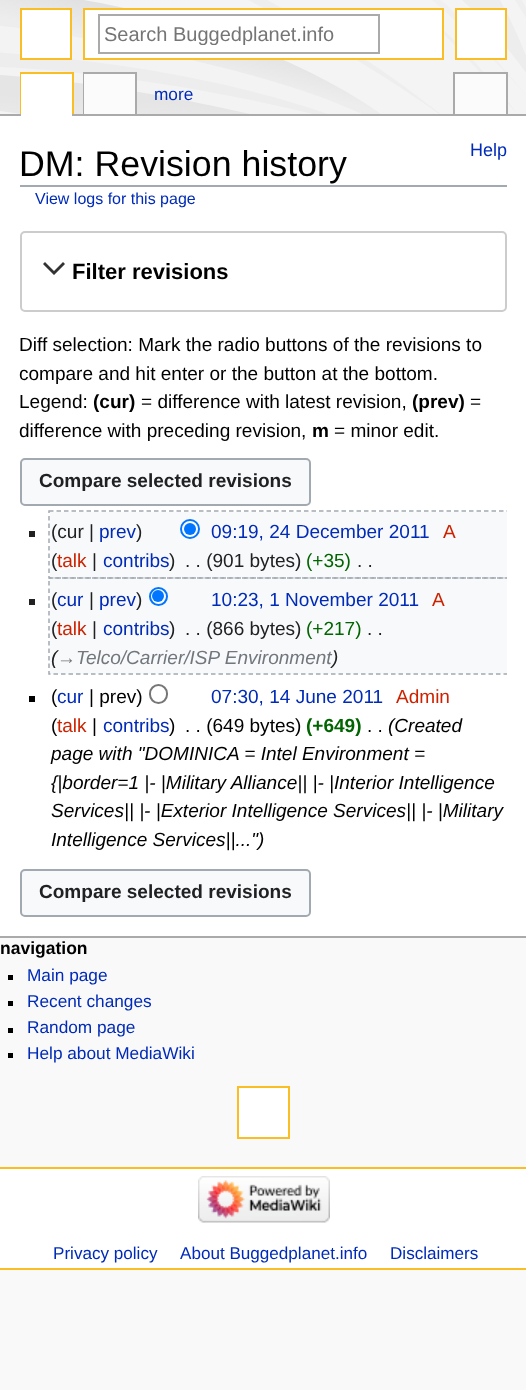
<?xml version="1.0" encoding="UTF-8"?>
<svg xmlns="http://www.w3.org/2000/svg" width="526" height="1390">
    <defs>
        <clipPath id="clip1"><rect x="104" y="23" width="250" height="22"/></clipPath>
        <clipPath id="clip2"><rect x="20" y="189" width="487" height="728"/></clipPath>
    </defs>
    <rect width="100%" height="100%" fill="#F9F9F9"/>
    <image x="0" y="0" width="526" height="114" href="img_01.png"/>
    <rect x="21" y="9" width="50" height="50" fill="#FFFFFF" stroke="#FABD23" stroke-width="2"/>
    <rect x="456" y="9" width="50" height="50" fill="#FFFFFF" stroke="#FABD23" stroke-width="2"/>
    <rect x="84" y="9" width="359" height="50" fill="#FFFFFF" stroke="#FABD23" stroke-width="2"/>
    <rect x="99" y="15" width="280" height="38" fill="none" stroke="#AAAAAA" stroke-width="2"/>
    <g clip-path="url(#clip1)">
        <text x="104" y="41" font-family="Liberation Sans" font-size="20" fill="#757575">Search Buggedplanet.info</text>
    </g>
    <text x="0" y="954" font-family="Liberation Sans" font-size="17.5" font-weight="700" fill="#000000">navigation</text>
    <rect x="8" y="975" width="5" height="5" fill="#000000"/>
    <text x="27" y="981" font-family="Liberation Sans" font-size="17.25" fill="#002BB8">Main page</text>
    <rect x="8" y="1001" width="5" height="5" fill="#000000"/>
    <text x="27" y="1007" font-family="Liberation Sans" font-size="17.25" fill="#002BB8">Recent changes</text>
    <rect x="8" y="1028" width="5" height="5" fill="#000000"/>
    <text x="27" y="1033" font-family="Liberation Sans" font-size="17.25" fill="#002BB8">Random page</text>
    <rect x="8" y="1053" width="5" height="5" fill="#000000"/>
    <text x="27" y="1059" font-family="Liberation Sans" font-size="17.25" fill="#002BB8">Help about MediaWiki</text>
    <rect x="20" y="72" width="54" height="2" fill="#FABD23"/>
    <rect x="72" y="72" width="2" height="44" fill="#FABD23"/>
    <rect x="20" y="72" width="2" height="44" fill="#FABD23"/>
    <rect x="83" y="72" width="54" height="2" fill="#AAAAAA"/>
    <rect x="135" y="72" width="2" height="44" fill="#AAAAAA"/>
    <rect x="83" y="72" width="2" height="44" fill="#AAAAAA"/>
    <rect x="453" y="72" width="54" height="2" fill="#AAAAAA"/>
    <rect x="506" y="72" width="2" height="44" fill="#AAAAAA"/>
    <rect x="453" y="72" width="2" height="44" fill="#AAAAAA"/>
    <rect x="0" y="114" width="526" height="2" fill="#AAAAAA"/>
    <rect x="21" y="74" width="51" height="42" fill="#FFFFFF"/>
    <rect x="84" y="74" width="51" height="40" fill="#FBFBFB"/>
    <text x="154" y="100" font-family="Liberation Sans" font-size="17.25" fill="#002BB8">more</text>
    <rect x="455" y="74" width="51" height="40" fill="#FBFBFB"/>
    <rect x="238" y="1087" width="51" height="51" fill="#FFFFFF" stroke="#FABD23" stroke-width="2"/>
    <rect x="0" y="116" width="526" height="820" fill="#FFFFFF"/>
    <rect x="0" y="936" width="526" height="2" fill="#AAAAAA"/>
    <rect x="20" y="185" width="487" height="2" fill="#A2A9B1"/>
    <text x="19" y="176" font-family="Liberation Sans" font-size="35.75" fill="#000000">DM: Revision history</text>
    <text x="470" y="156" font-family="Liberation Sans" font-size="18" fill="#002BB8">Help</text>
    <text x="35" y="204" font-family="Liberation Sans" font-size="16" fill="#002BB8">View logs for this page</text>
    <rect x="21" y="232" width="485" height="79" rx="4" fill="none" stroke="#CCCCCC" stroke-width="2"/>
    <path d="M 63 262 L 54 271 L 45 262 L 43 264 L 54 275 L 65 264 Z" fill="#333333"/>
    <text x="72" y="279" font-family="Liberation Sans" font-size="22" font-weight="700" fill="#000000">Filter revisions</text>
    <text font-family="Liberation Sans" font-size="19.05" fill="#000000">
        <tspan x="19" y="351">Diff selection: Mark the radio buttons of the revisions to</tspan>
        <tspan x="19" y="380">compare and hit enter or the button at the bottom.</tspan>
        <tspan x="19" y="408">Legend:</tspan>
    </text>
    <text x="93" y="408" font-family="Liberation Sans" font-size="19.05" font-weight="700" fill="#000000">(cur)</text>
    <text x="141" y="408" font-family="Liberation Sans" font-size="19.05" fill="#000000">= difference with latest revision,</text>
    <text x="412" y="408" font-family="Liberation Sans" font-size="19.05" font-weight="700" fill="#000000">(prev)</text>
    <text x="470" y="408" font-family="Liberation Sans" font-size="19.05" fill="#000000">=</text>
    <text x="19" y="437" font-family="Liberation Sans" font-size="19.05" fill="#000000">difference with preceding revision,</text>
    <text x="312" y="437" font-family="Liberation Sans" font-size="19.05" font-weight="700" fill="#000000">m</text>
    <text x="334" y="437" font-family="Liberation Sans" font-size="19.05" fill="#000000">= minor edit.</text>
    <rect x="21" y="459" width="289" height="46" rx="4" fill="#F8F9FA" stroke="#A2A9B1" stroke-width="2"/>
    <text x="39" y="487" font-family="Liberation Sans" font-size="19.05" font-weight="700" fill="#202122">Compare selected revisions</text>
    <rect x="50" y="512" width="457" height="66" fill="#F8F9FA"/>
    <text x="51" y="538" font-family="Liberation Sans" font-size="19.05" fill="#202122">(cur |</text>
    <text x="99" y="538" font-family="Liberation Sans" font-size="19.05" fill="#002BB8">prev</text>
    <text x="136" y="538" font-family="Liberation Sans" font-size="19.05" fill="#202122">)</text>
    <circle cx="190" cy="529" r="9" fill="#FFFFFF" stroke="#0075FF" stroke-width="2"/>
    <circle cx="190" cy="529" r="6" fill="#0075FF"/>
    <text x="443" y="538" font-family="Liberation Sans" font-size="19.05" fill="#CC2200">A</text>
    <text x="51" y="567" font-family="Liberation Sans" font-size="19.05" fill="#202122">(</text>
    <text x="57" y="567" font-family="Liberation Sans" font-size="19.05" fill="#CC2200">talk</text>
    <text x="92" y="567" font-family="Liberation Sans" font-size="19.05" fill="#202122">|</text>
    <text x="103" y="567" font-family="Liberation Sans" font-size="19.05" fill="#002BB8">contribs</text>
    <text x="169" y="567" font-family="Liberation Sans" font-size="19.05" fill="#202122">)</text>
    <text x="211" y="538" font-family="Liberation Sans" font-size="19.05" fill="#002BB8">09:19, 24 December 2011</text>
    <text x="185" y="567" font-family="Liberation Sans" font-size="19.05" fill="#202122">. . (901 bytes)</text>
    <text x="306" y="567" font-family="Liberation Sans" font-size="19.05" fill="#006400">(+35)</text>
    <text x="357" y="567" font-family="Liberation Sans" font-size="19.05" fill="#202122">. .</text>
    <g clip-path="url(#clip2)">
        <path d="M 49 511 H 508 V 578 H 49 Z" fill="none" stroke="#A2A9B1" stroke-width="1.5" stroke-dasharray="4.5 3"/>
    </g>
    <rect x="29" y="531" width="6" height="6" fill="#202122"/>
    <rect x="50" y="579" width="457" height="95" fill="#F8F9FA"/>
    <text x="51" y="606" font-family="Liberation Sans" font-size="19.05" fill="#202122">(</text>
    <text x="57" y="606" font-family="Liberation Sans" font-size="19.05" fill="#002BB8">cur</text>
    <text x="89" y="606" font-family="Liberation Sans" font-size="19.05" fill="#202122">|</text>
    <text x="99" y="606" font-family="Liberation Sans" font-size="19.05" fill="#002BB8">prev</text>
    <text x="136" y="606" font-family="Liberation Sans" font-size="19.05" fill="#202122">)</text>
    <circle cx="158.5" cy="596.5" r="8.5" fill="#FFFFFF" stroke="#0075FF" stroke-width="2"/>
    <circle cx="158" cy="596" r="6" fill="#0075FF"/>
    <text x="432" y="606" font-family="Liberation Sans" font-size="19.05" fill="#CC2200">A</text>
    <text x="51" y="635" font-family="Liberation Sans" font-size="19.05" fill="#202122">(</text>
    <text x="57" y="635" font-family="Liberation Sans" font-size="19.05" fill="#CC2200">talk</text>
    <text x="92" y="635" font-family="Liberation Sans" font-size="19.05" fill="#202122">|</text>
    <text x="103" y="635" font-family="Liberation Sans" font-size="19.05" fill="#002BB8">contribs</text>
    <text x="169" y="635" font-family="Liberation Sans" font-size="19.05" fill="#202122">)</text>
    <text x="211" y="606" font-family="Liberation Sans" font-size="19.05" fill="#002BB8">10:23, 1 November 2011</text>
    <text x="185" y="635" font-family="Liberation Sans" font-size="19.05" fill="#202122">. . (866 bytes)</text>
    <text x="306" y="635" font-family="Liberation Sans" font-size="19.05" fill="#006400">(+217)</text>
    <text x="367" y="635" font-family="Liberation Sans" font-size="19.05" fill="#202122">. .</text>
    <text x="51" y="664" font-family="Liberation Sans" font-size="19.05" font-style="italic" fill="#202122">(</text>
    <text x="57" y="664" font-family="Liberation Sans" font-size="19.05" font-style="italic" fill="#72777D">→Telco/Carrier/ISP Environment</text>
    <text x="332" y="664" font-family="Liberation Sans" font-size="19.05" font-style="italic" fill="#202122">)</text>
    <g clip-path="url(#clip2)">
        <path d="M 49 578 H 508 V 674 H 49 Z" fill="none" stroke="#A2A9B1" stroke-width="1.5" stroke-dasharray="4.5 3"/>
    </g>
    <rect x="29" y="599" width="6" height="6" fill="#202122"/>
    <text x="51" y="703" font-family="Liberation Sans" font-size="19.05" fill="#000000">(</text>
    <text x="57" y="703" font-family="Liberation Sans" font-size="19.05" fill="#002BB8">cur</text>
    <text x="89" y="703" font-family="Liberation Sans" font-size="19.05" fill="#000000">| prev)</text>
    <rect x="150" y="685" width="17" height="18" rx="8.5" fill="none" stroke="#767676" stroke-width="2"/>
    <text x="396" y="703" font-family="Liberation Sans" font-size="19.05" fill="#CC2200">Admin</text>
    <text x="51" y="732" font-family="Liberation Sans" font-size="19.05" fill="#000000">(</text>
    <text x="57" y="732" font-family="Liberation Sans" font-size="19.05" fill="#CC2200">talk</text>
    <text x="92" y="732" font-family="Liberation Sans" font-size="19.05" fill="#000000">|</text>
    <text x="103" y="732" font-family="Liberation Sans" font-size="19.05" fill="#002BB8">contribs</text>
    <text x="169" y="732" font-family="Liberation Sans" font-size="19.05" fill="#000000">)</text>
    <rect x="29" y="696" width="6" height="6" fill="#000000"/>
    <text x="211" y="703" font-family="Liberation Sans" font-size="19.05" fill="#002BB8">07:30, 14 June 2011</text>
    <text x="185" y="732" font-family="Liberation Sans" font-size="19.05" fill="#000000">. . (649 bytes)</text>
    <text x="306" y="732" font-family="Liberation Sans" font-size="19.05" font-weight="700" fill="#006400">(+649)</text>
    <text x="367" y="732" font-family="Liberation Sans" font-size="19.05" fill="#000000">. .</text>
    <text x="388" y="732" font-family="Liberation Sans" font-size="19.05" font-style="italic" fill="#000000">(Created</text>
    <text font-family="Liberation Sans" font-size="19.05" font-style="italic" fill="#000000">
        <tspan x="51" y="760">page with "DOMINICA = Intel Environment =</tspan>
        <tspan x="51" y="789">{|border=1 |- |Military Alliance|| |- |Interior Intelligence</tspan>
        <tspan x="51" y="817">Services|| |- |Exterior Intelligence Services|| |- |Military</tspan>
        <tspan x="51" y="846">Intelligence Services||...")</tspan>
    </text>
    <rect x="21" y="870" width="289" height="46" rx="4" fill="#F8F9FA" stroke="#A2A9B1" stroke-width="2"/>
    <text x="39" y="898" font-family="Liberation Sans" font-size="19.05" font-weight="700" fill="#202122">Compare selected revisions</text>
    <rect x="0" y="1169" width="526" height="99" fill="#FFFFFF"/>
    <rect x="0" y="1167" width="526" height="2" fill="#FABD23"/>
    <rect x="0" y="1268" width="526" height="2" fill="#FABD23"/>
    <image x="198" y="1176" width="132" height="47" href="img_02.png"/>
    <text x="53" y="1259" font-family="Liberation Sans" font-size="17.1" fill="#002BB8">Privacy policy</text>
    <text x="180" y="1259" font-family="Liberation Sans" font-size="17.1" fill="#002BB8">About Buggedplanet.info</text>
    <text x="390" y="1259" font-family="Liberation Sans" font-size="17.1" fill="#002BB8">Disclaimers</text>
</svg>
